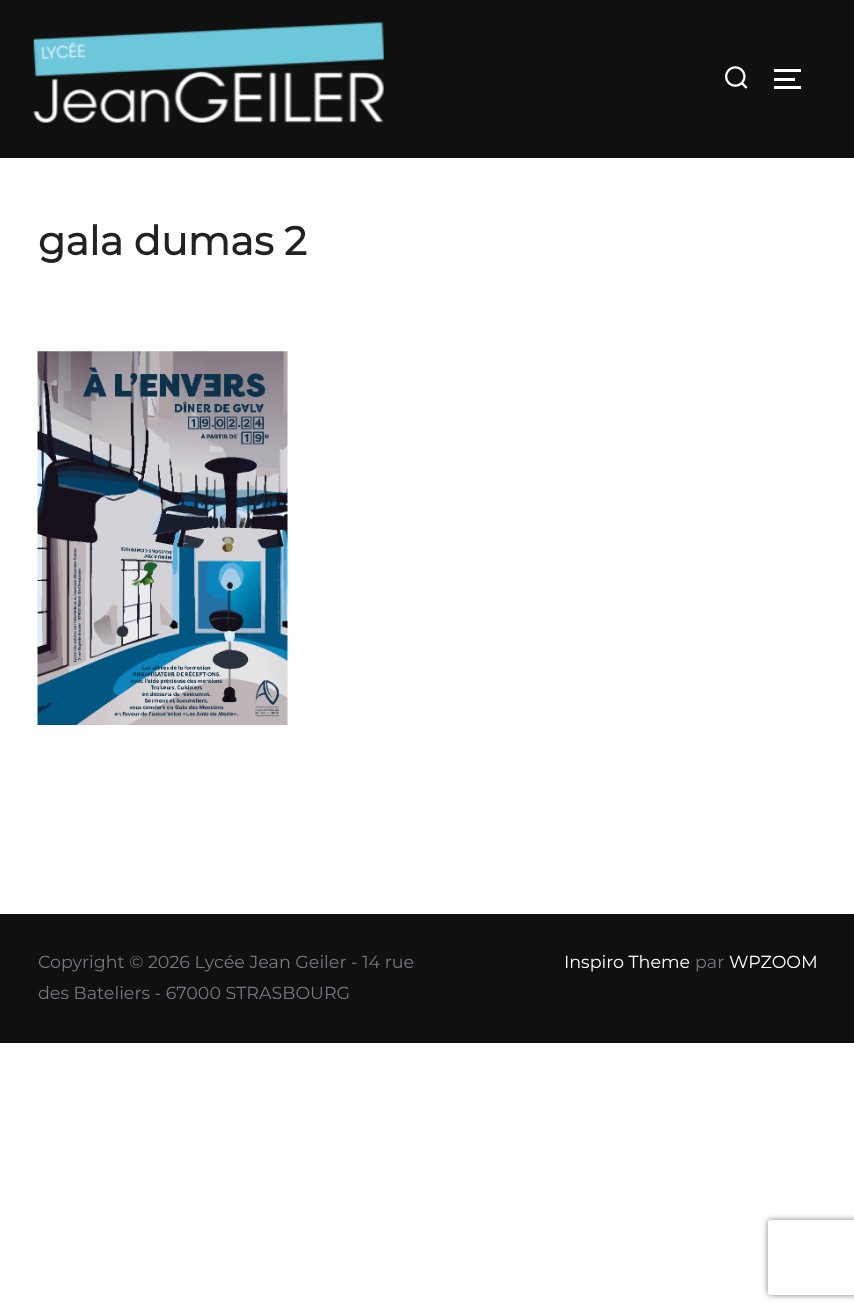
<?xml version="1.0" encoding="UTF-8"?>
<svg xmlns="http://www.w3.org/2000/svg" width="854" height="1312">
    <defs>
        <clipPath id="clip1"><path d="M 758 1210 H 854 V 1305 H 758 Z M 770.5 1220 H 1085.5 C 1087 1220 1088 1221 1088 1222.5 V 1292.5 C 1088 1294 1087 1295 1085.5 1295 H 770.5 C 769 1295 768 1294 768 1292.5 V 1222.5 C 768 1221 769 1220 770.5 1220 Z" clip-rule="evenodd"/></clipPath>
        <filter id="blur1" x="-50%" y="-200%" width="200%" height="500%"><feGaussianBlur stdDeviation="3"/></filter>
    </defs>
    <rect width="100%" height="100%" fill="#FFFFFF"/>
    <rect x="0" y="0" width="854" height="158" fill="#101010"/>
    <image x="33" y="22" width="351" height="101" href="img_01.png"/>
    <image x="725" y="66" width="23" height="23" href="img_02.png"/>
    <rect x="774" y="69" width="27" height="3" fill="#FFFFFF"/>
    <rect x="774" y="78" width="21" height="3" fill="#FFFFFF"/>
    <rect x="774" y="86" width="27" height="3" fill="#FFFFFF"/>
    <text x="38" y="255" font-family="Montserrat" font-size="40" font-weight="700" fill="#222222">gala dumas 2</text>
    <image x="37" y="351" width="251" height="374" href="img_03.png"/>
    <rect x="0" y="914" width="854" height="129" fill="#101010"/>
    <text font-family="Montserrat" font-size="17.5" font-weight="100" fill="#78787F">
        <tspan x="38" y="968">Copyright © 2026 Lycée Jean Geiler - 14 rue</tspan>
        <tspan x="38" y="999">des Bateliers - 67000 STRASBOURG</tspan>
    </text>
    <text x="564" y="968" font-family="Montserrat" font-size="17.5" font-weight="100" fill="#FFFFFF">Inspiro Theme</text>
    <text x="695" y="968" font-family="Montserrat" font-size="17.5" font-weight="100" fill="#78787F">par</text>
    <text x="729" y="968" font-family="Montserrat" font-size="17.5" font-weight="100" fill="#FFFFFF">WPZOOM</text>
    <g clip-path="url(#clip1)">
        <rect x="768" y="1220" width="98" height="75" rx="2.5" fill="#808080" filter="url(#blur1)"/>
    </g>
</svg>
